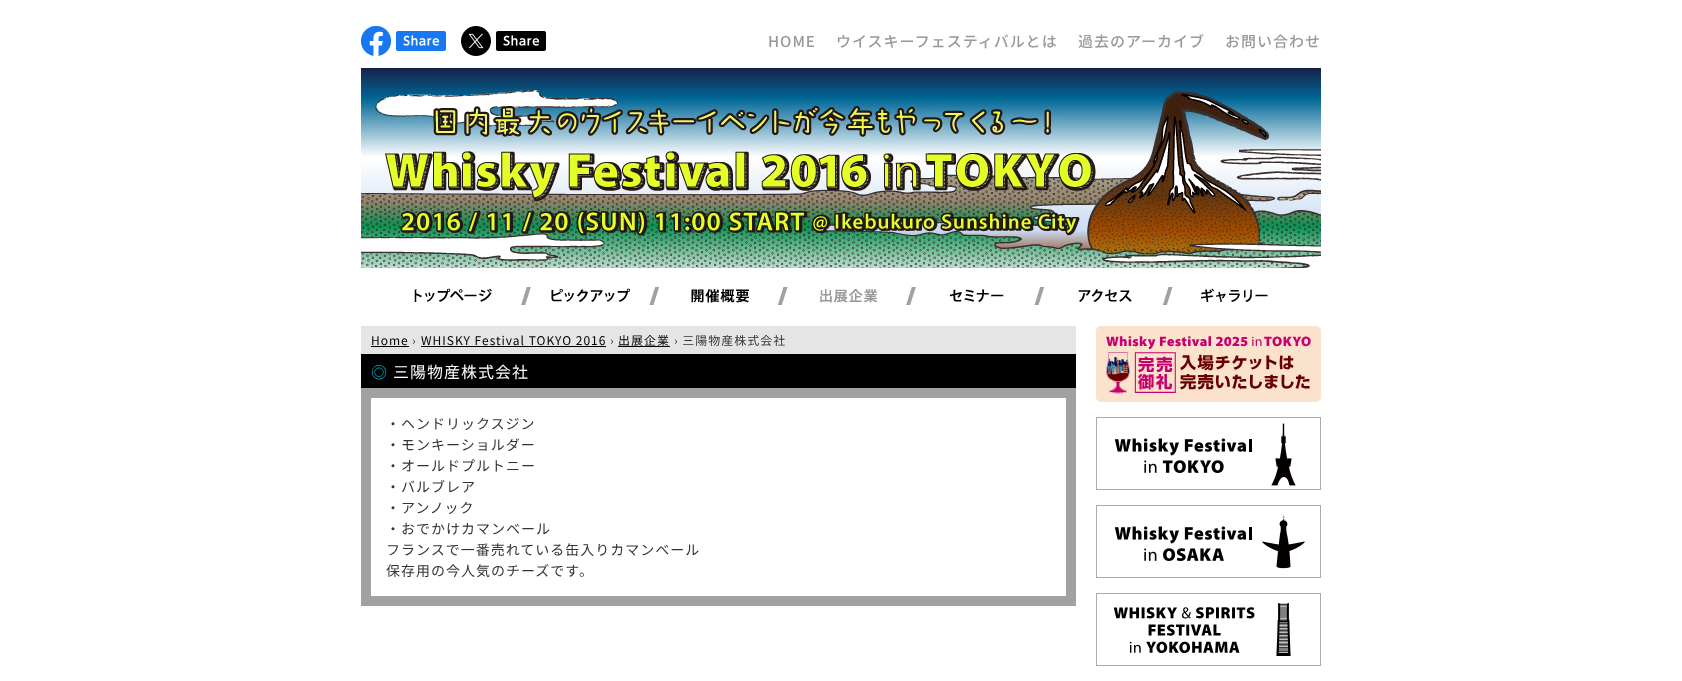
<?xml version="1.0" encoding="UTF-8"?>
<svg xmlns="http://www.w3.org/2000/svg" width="1682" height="681">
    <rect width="100%" height="100%" fill="#FFFFFF"/>
    <image x="361" y="26" width="30" height="30" href="img_01.png"/>
    <image x="396" y="31" width="50" height="20" href="img_02.png"/>
    <image x="461" y="26" width="30" height="30" href="img_03.png"/>
    <image x="496" y="31" width="50" height="20" href="img_04.png"/>
    <text x="768" y="47" font-family="Noto Sans JP" font-size="15" font-weight="500" letter-spacing="1" fill="#999999">HOME</text>
    <text x="836" y="47" font-family="Noto Sans JP" font-size="15" font-weight="500" letter-spacing="1" fill="#999999">ウイスキーフェスティバルとは</text>
    <text x="1078" y="47" font-family="Noto Sans JP" font-size="15" font-weight="500" letter-spacing="1" fill="#999999">過去のアーカイブ</text>
    <text x="1225" y="47" font-family="Noto Sans JP" font-size="15" font-weight="500" letter-spacing="1" fill="#999999">お問い合わせ</text>
    <image x="361" y="68" width="960" height="200" href="img_05.png"/>
    <image x="521" y="287" width="652" height="18" href="img_06.png"/>
    <image x="414" y="288" width="78" height="14" href="img_07.png"/>
    <image x="551" y="288" width="79" height="14" href="img_08.png"/>
    <image x="691" y="289" width="58" height="14" href="img_09.png"/>
    <image x="820" y="289" width="58" height="14" href="img_10.png"/>
    <image x="949" y="289" width="55" height="13" href="img_11.png"/>
    <image x="1078" y="289" width="54" height="13" href="img_12.png"/>
    <image x="1201" y="288" width="67" height="14" href="img_13.png"/>
    <rect x="361" y="326" width="715" height="28" fill="#E5E5E5"/>
    <text x="371" y="345" font-family="Noto Sans JP" font-size="12" letter-spacing="1" fill="#000000">Home</text>
    <rect x="371" y="346" width="38" height="1" fill="#000000"/>
    <text x="412" y="345" font-family="Noto Sans JP" font-size="12" letter-spacing="1" fill="#333333">›</text>
    <text x="421" y="345" font-family="Noto Sans JP" font-size="12" letter-spacing="1" fill="#000000">WHISKY Festival TOKYO 2016</text>
    <rect x="421" y="346" width="185" height="1" fill="#000000"/>
    <text x="610" y="345" font-family="Noto Sans JP" font-size="12" letter-spacing="1" fill="#333333">›</text>
    <text x="618" y="345" font-family="Noto Sans JP" font-size="12" letter-spacing="1" fill="#000000">出展企業</text>
    <rect x="618" y="346" width="52" height="1" fill="#000000"/>
    <text x="674" y="345" font-family="Noto Sans JP" font-size="12" letter-spacing="1" fill="#333333">› 三陽物産株式会社</text>
    <rect x="361" y="354" width="715" height="34" fill="#000000"/>
    <text x="371" y="378" font-family="WenQuanYi Zen Hei" font-size="16" font-weight="500" letter-spacing="1" fill="#00A8C8">◎</text>
    <text x="393" y="378" font-family="Noto Sans JP" font-size="16" letter-spacing="1" fill="#FFFFFF">三陽物産株式会社</text>
    <rect x="361" y="596" width="715" height="10" fill="#A1A1A1"/>
    <rect x="371" y="388" width="695" height="10" fill="#A1A1A1"/>
    <rect x="1066" y="388" width="10" height="208" fill="#A1A1A1"/>
    <rect x="361" y="388" width="10" height="208" fill="#A1A1A1"/>
    <text font-family="Noto Sans JP" font-size="14" letter-spacing="1" fill="#333333">
        <tspan x="386" y="429">・ヘンドリックスジン</tspan>
        <tspan x="386" y="450">・モンキーショルダー</tspan>
        <tspan x="386" y="471">・オールドプルトニー</tspan>
        <tspan x="386" y="492">・バルブレア</tspan>
        <tspan x="386" y="513">・アンノック</tspan>
        <tspan x="386" y="534">・おでかけカマンベール</tspan>
        <tspan x="386" y="555">フランスで一番売れている缶入りカマンベール</tspan>
        <tspan x="386" y="576">保存用の今人気のチーズです。</tspan>
    </text>
    <image x="1096" y="326" width="225" height="76" href="img_14.png"/>
    <rect x="1096.5" y="417.5" width="224" height="72" fill="none" stroke="#AAAAAA"/>
    <image x="1114" y="423" width="182" height="63" href="img_15.png"/>
    <rect x="1096.5" y="505.5" width="224" height="72" fill="none" stroke="#AAAAAA"/>
    <image x="1114" y="514" width="191" height="55" href="img_16.png"/>
    <rect x="1096.5" y="593.5" width="224" height="72" fill="none" stroke="#AAAAAA"/>
    <image x="1113" y="603" width="178" height="53" href="img_17.png"/>
</svg>
